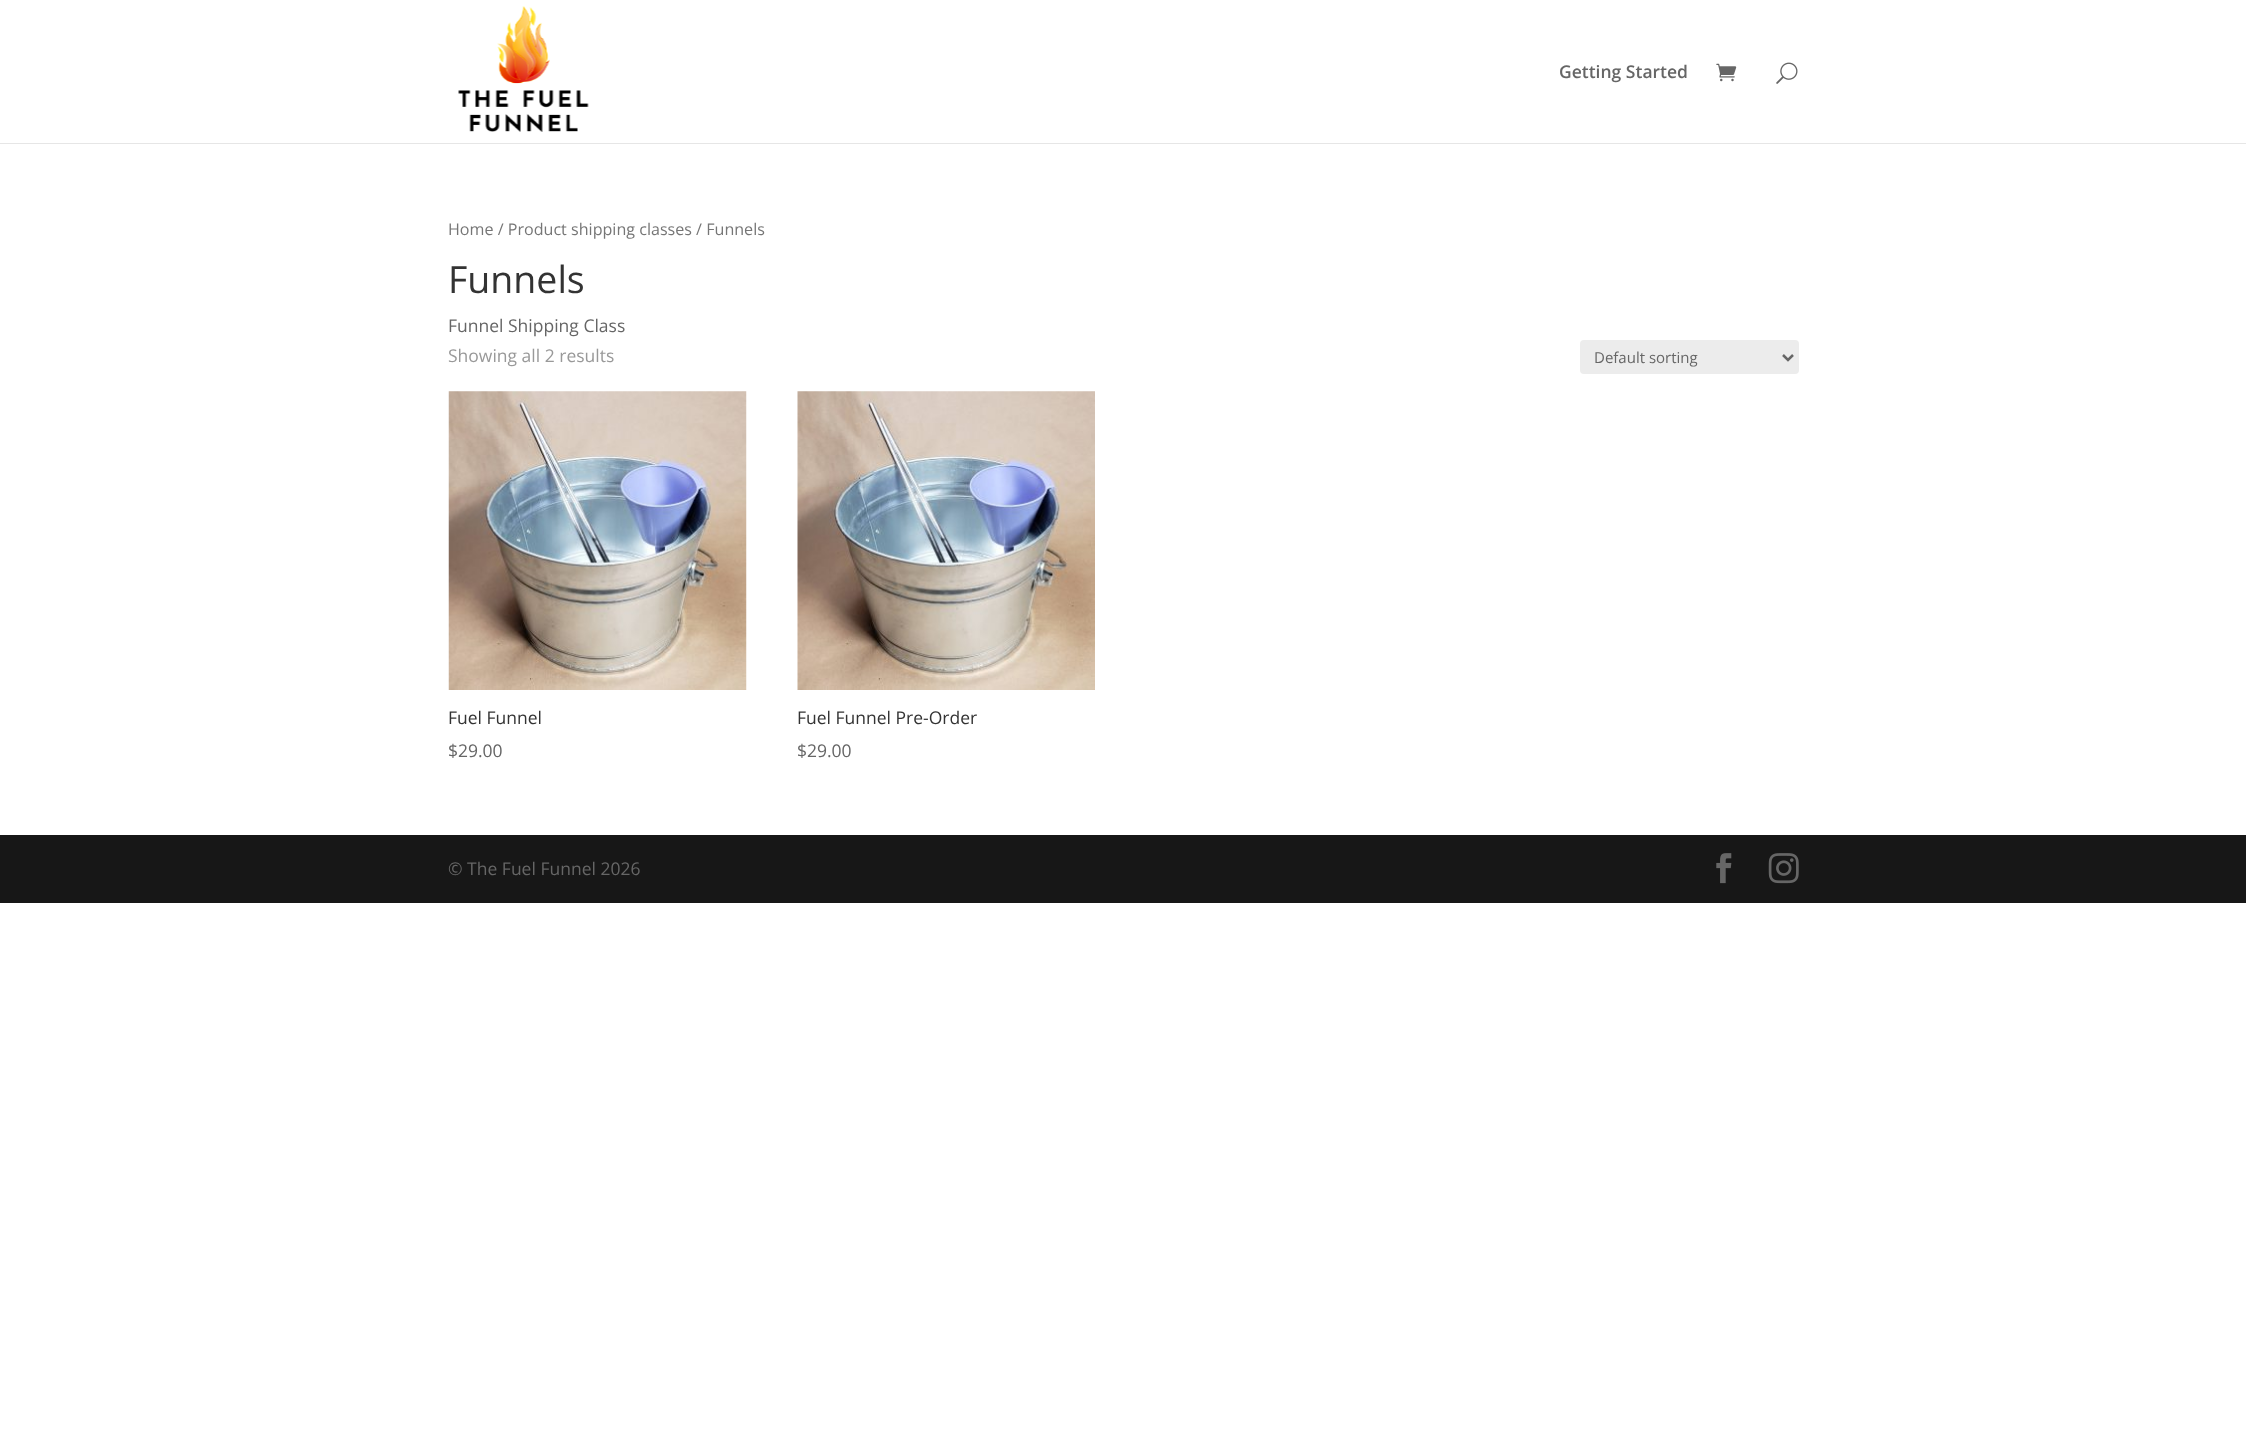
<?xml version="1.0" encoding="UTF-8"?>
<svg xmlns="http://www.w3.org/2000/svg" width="2246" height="1448">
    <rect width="100%" height="100%" fill="#FFFFFF"/>
    <rect x="0" y="143" width="2246" height="1" fill="#E6E6E6"/>
    <image x="458" y="6" width="131" height="126" href="img_01.png"/>
    <text x="1559" y="78" font-family="Open Sans" font-size="17.5" font-weight="600" fill="#666666">Getting Started</text>
    <image x="1716" y="63" width="21" height="19" href="img_02.png"/>
    <image x="1776" y="62" width="22" height="22" href="img_03.png"/>
    <text x="448" y="235" font-family="Open Sans" font-size="16.1" fill="#767676">Home / Product shipping classes / Funnels</text>
    <text x="448" y="293" font-family="Open Sans" font-size="37.5" fill="#333333">Funnels</text>
    <text x="448" y="332" font-family="Open Sans" font-size="17.5" fill="#666666">Funnel Shipping Class</text>
    <text x="448" y="362" font-family="Open Sans" font-size="17.5" fill="#999999">Showing all 2 results</text>
    <rect x="1580" y="340" width="219" height="34" rx="4" fill="#ECECEC"/>
    <path d="M 1783 355 L 1788 360 L 1793 355" fill="none" stroke="#666666" stroke-width="2.5"/>
    <text x="1594" y="363" font-family="Open Sans" font-size="15" fill="#666666">Default sorting</text>
    <image x="448" y="391" width="299" height="299" href="img_04.png"/>
    <text x="448" y="724" font-family="Open Sans" font-size="17.5" fill="#333333">Fuel Funnel</text>
    <text x="448" y="757" font-family="Open Sans" font-size="17.5" fill="#666666">$29.00</text>
    <image x="797" y="391" width="298" height="299" href="img_05.png"/>
    <text x="797" y="724" font-family="Open Sans" font-size="17.5" fill="#333333">Fuel Funnel Pre-Order</text>
    <text x="797" y="757" font-family="Open Sans" font-size="17.5" fill="#666666">$29.00</text>
    <rect x="0" y="835" width="2246" height="68" fill="#171717"/>
    <text x="448" y="875" font-family="Open Sans" font-size="17.5" fill="#666666">© The Fuel Funnel 2026</text>
    <image x="1716" y="853" width="16" height="31" href="img_06.png"/>
    <image x="1768" y="853" width="31" height="31" href="img_07.png"/>
</svg>
